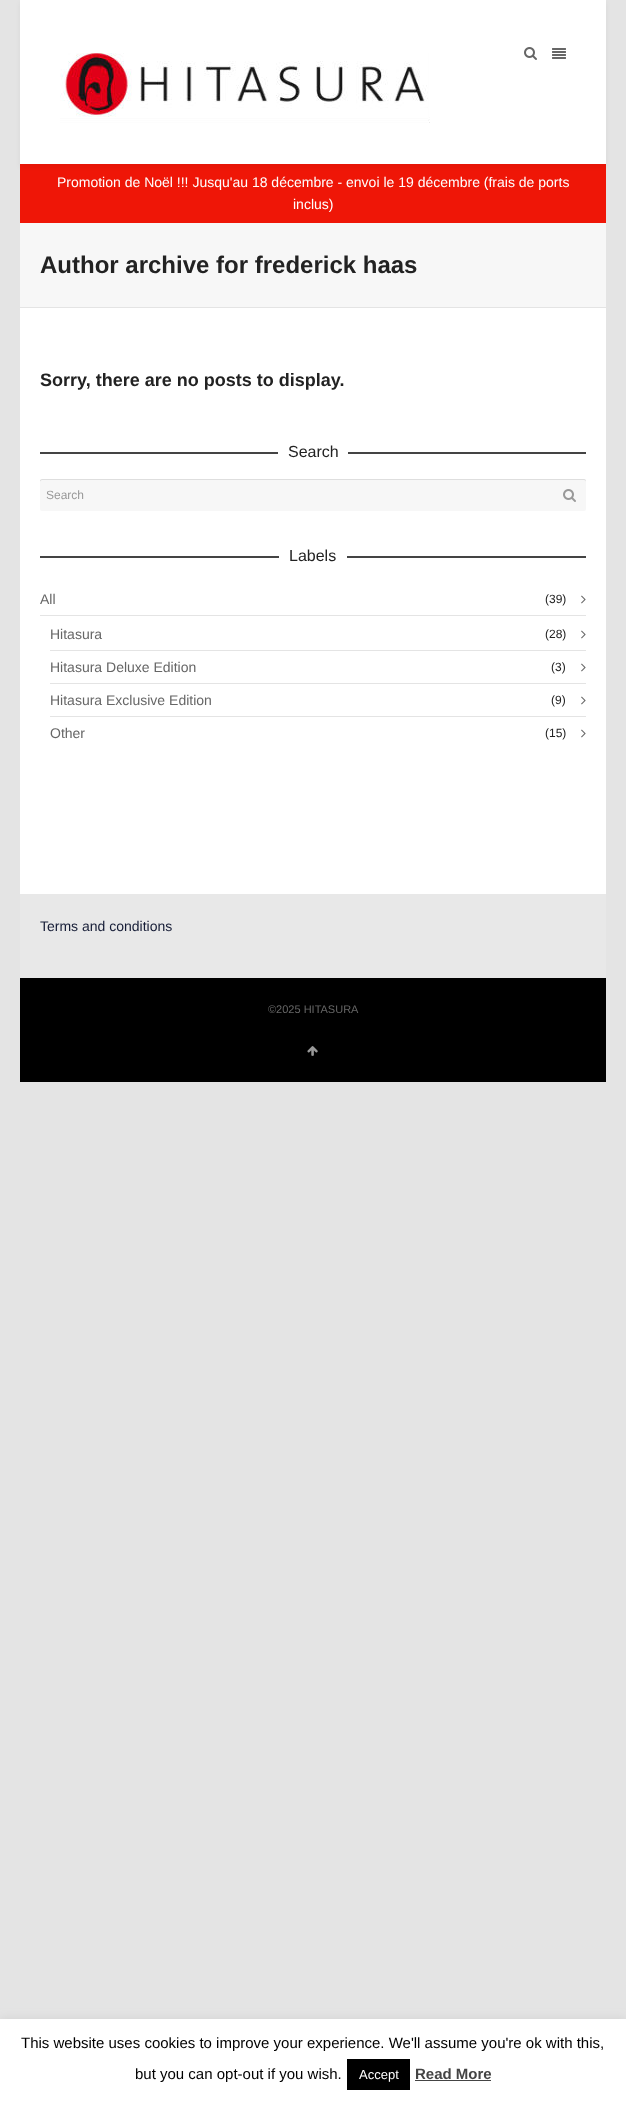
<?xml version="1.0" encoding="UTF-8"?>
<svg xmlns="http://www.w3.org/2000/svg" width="626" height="2102">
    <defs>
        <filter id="blur1" x="-50%" y="-200%" width="200%" height="500%"><feGaussianBlur stdDeviation="2.5"/></filter>
        <filter id="blur2" x="-50%" y="-200%" width="200%" height="500%"><feGaussianBlur stdDeviation="5"/></filter>
    </defs>
    <rect width="100%" height="100%" fill="#E4E4E4"/>
    <rect x="20" y="164" width="586" height="59" fill="#EF1607"/>
    <rect x="20" y="3" width="586" height="164" fill="#000000" fill-opacity="0.05" filter="url(#blur1)"/>
    <rect x="20" y="0" width="586" height="164" fill="#FFFFFF"/>
    <image x="60" y="53" width="370" height="70" href="img_01.png"/>
    <image x="524" y="47" width="13" height="13" href="img_02.png"/>
    <image x="552" y="48" width="14" height="11" href="img_03.png"/>
    <text x="57" y="187" font-family="Liberation Sans" font-size="14" fill="#FFFFFF">Promotion de Noël !!! Jusqu'au 18 décembre - envoi le 19 décembre (frais de ports</text>
    <text x="293" y="209" font-family="Liberation Sans" font-size="14" fill="#FFFFFF">inclus)</text>
    <rect x="20" y="308" width="586" height="586" fill="#FFFFFF"/>
    <rect x="20" y="223" width="586" height="84" fill="#F7F7F7"/>
    <text x="40" y="273" font-family="Liberation Sans" font-size="24" font-weight="700" fill="#222222">Author archive for frederick haas</text>
    <text x="40" y="386" font-family="Liberation Sans" font-size="18" font-weight="700" fill="#222222">Sorry, there are no posts to display.</text>
    <rect x="40" y="452" width="546" height="2" fill="#444444"/>
    <rect x="278" y="452" width="70" height="2" fill="#FFFFFF"/>
    <text x="288" y="457" font-family="Liberation Sans" font-size="16" fill="#222222">Search</text>
    <rect x="40" y="479" width="546" height="32" rx="2" fill="#F7F7F7"/>
    <path d="M 42 480 H 584 C 585 480 586 481 586 482 C 586 481 586 479 584 479 H 42 L 40 480 V 482 C 40 481 41 480 42 480 Z" fill="#DEDEDE"/>
    <text x="46" y="499" font-family="Liberation Sans" font-size="12" fill="#999999">Search</text>
    <image x="563" y="489" width="13" height="13" href="img_04.png"/>
    <rect x="40" y="556" width="546" height="2" fill="#444444"/>
    <rect x="279" y="556" width="68" height="2" fill="#FFFFFF"/>
    <text x="289" y="561" font-family="Liberation Sans" font-size="16" fill="#222222">Labels</text>
    <text x="40" y="604" font-family="Liberation Sans" font-size="14" fill="#666666">All</text>
    <image x="581" y="595" width="5" height="9" href="img_05.png"/>
    <text x="545" y="603" font-family="Liberation Sans" font-size="12" fill="#222222">(39)</text>
    <rect x="40" y="615" width="546" height="1" fill="#E4E4E4"/>
    <text x="50" y="639" font-family="Liberation Sans" font-size="14" fill="#666666">Hitasura</text>
    <image x="581" y="630" width="5" height="9" href="img_05.png"/>
    <text x="545" y="638" font-family="Liberation Sans" font-size="12" fill="#222222">(28)</text>
    <rect x="50" y="650" width="536" height="1" fill="#E4E4E4"/>
    <text x="50" y="672" font-family="Liberation Sans" font-size="14" fill="#666666">Hitasura Deluxe Edition</text>
    <image x="581" y="663" width="5" height="9" href="img_05.png"/>
    <text x="551" y="671" font-family="Liberation Sans" font-size="12" fill="#222222">(3)</text>
    <rect x="50" y="683" width="536" height="1" fill="#E4E4E4"/>
    <text x="50" y="705" font-family="Liberation Sans" font-size="14" fill="#666666">Hitasura Exclusive Edition</text>
    <image x="581" y="696" width="5" height="9" href="img_05.png"/>
    <text x="551" y="704" font-family="Liberation Sans" font-size="12" fill="#222222">(9)</text>
    <rect x="50" y="716" width="536" height="1" fill="#E4E4E4"/>
    <text x="50" y="738" font-family="Liberation Sans" font-size="14" fill="#666666">Other</text>
    <image x="581" y="729" width="5" height="9" href="img_05.png"/>
    <text x="545" y="737" font-family="Liberation Sans" font-size="12" fill="#222222">(15)</text>
    <rect x="20" y="894" width="586" height="84" fill="#E8E8E8"/>
    <text x="40" y="931" font-family="Liberation Sans" font-size="14" fill="#141B35">Terms and conditions</text>
    <rect x="20" y="978" width="586" height="104" fill="#000000"/>
    <text x="268" y="1013" font-family="Liberation Sans" font-size="11" fill="#666666">©2025 HITASURA</text>
    <image x="307" y="1046" width="11" height="10" href="img_06.png"/>
    <rect x="0" y="2018" width="626" height="83" fill="#ACABAB" fill-opacity="0.3" filter="url(#blur2)"/>
    <rect x="0" y="2019" width="626" height="83" fill="#FFFFFF"/>
    <text x="21" y="2048" font-family="Liberation Sans" font-size="15" fill="#000000">This website uses cookies to improve your experience. We'll assume you're ok with this,</text>
    <text x="135" y="2079" font-family="Liberation Sans" font-size="15" fill="#000000">but you can opt-out if you wish.</text>
    <rect x="347" y="2059" width="63" height="31" fill="#000000"/>
    <text x="359" y="2079" font-family="Liberation Sans" font-size="13" fill="#FFFFFF">Accept</text>
    <text x="415" y="2079" font-family="Liberation Sans" font-size="15" font-weight="700" fill="#444444">Read More</text>
    <rect x="415" y="2080" width="76" height="1" fill="#444444"/>
</svg>
